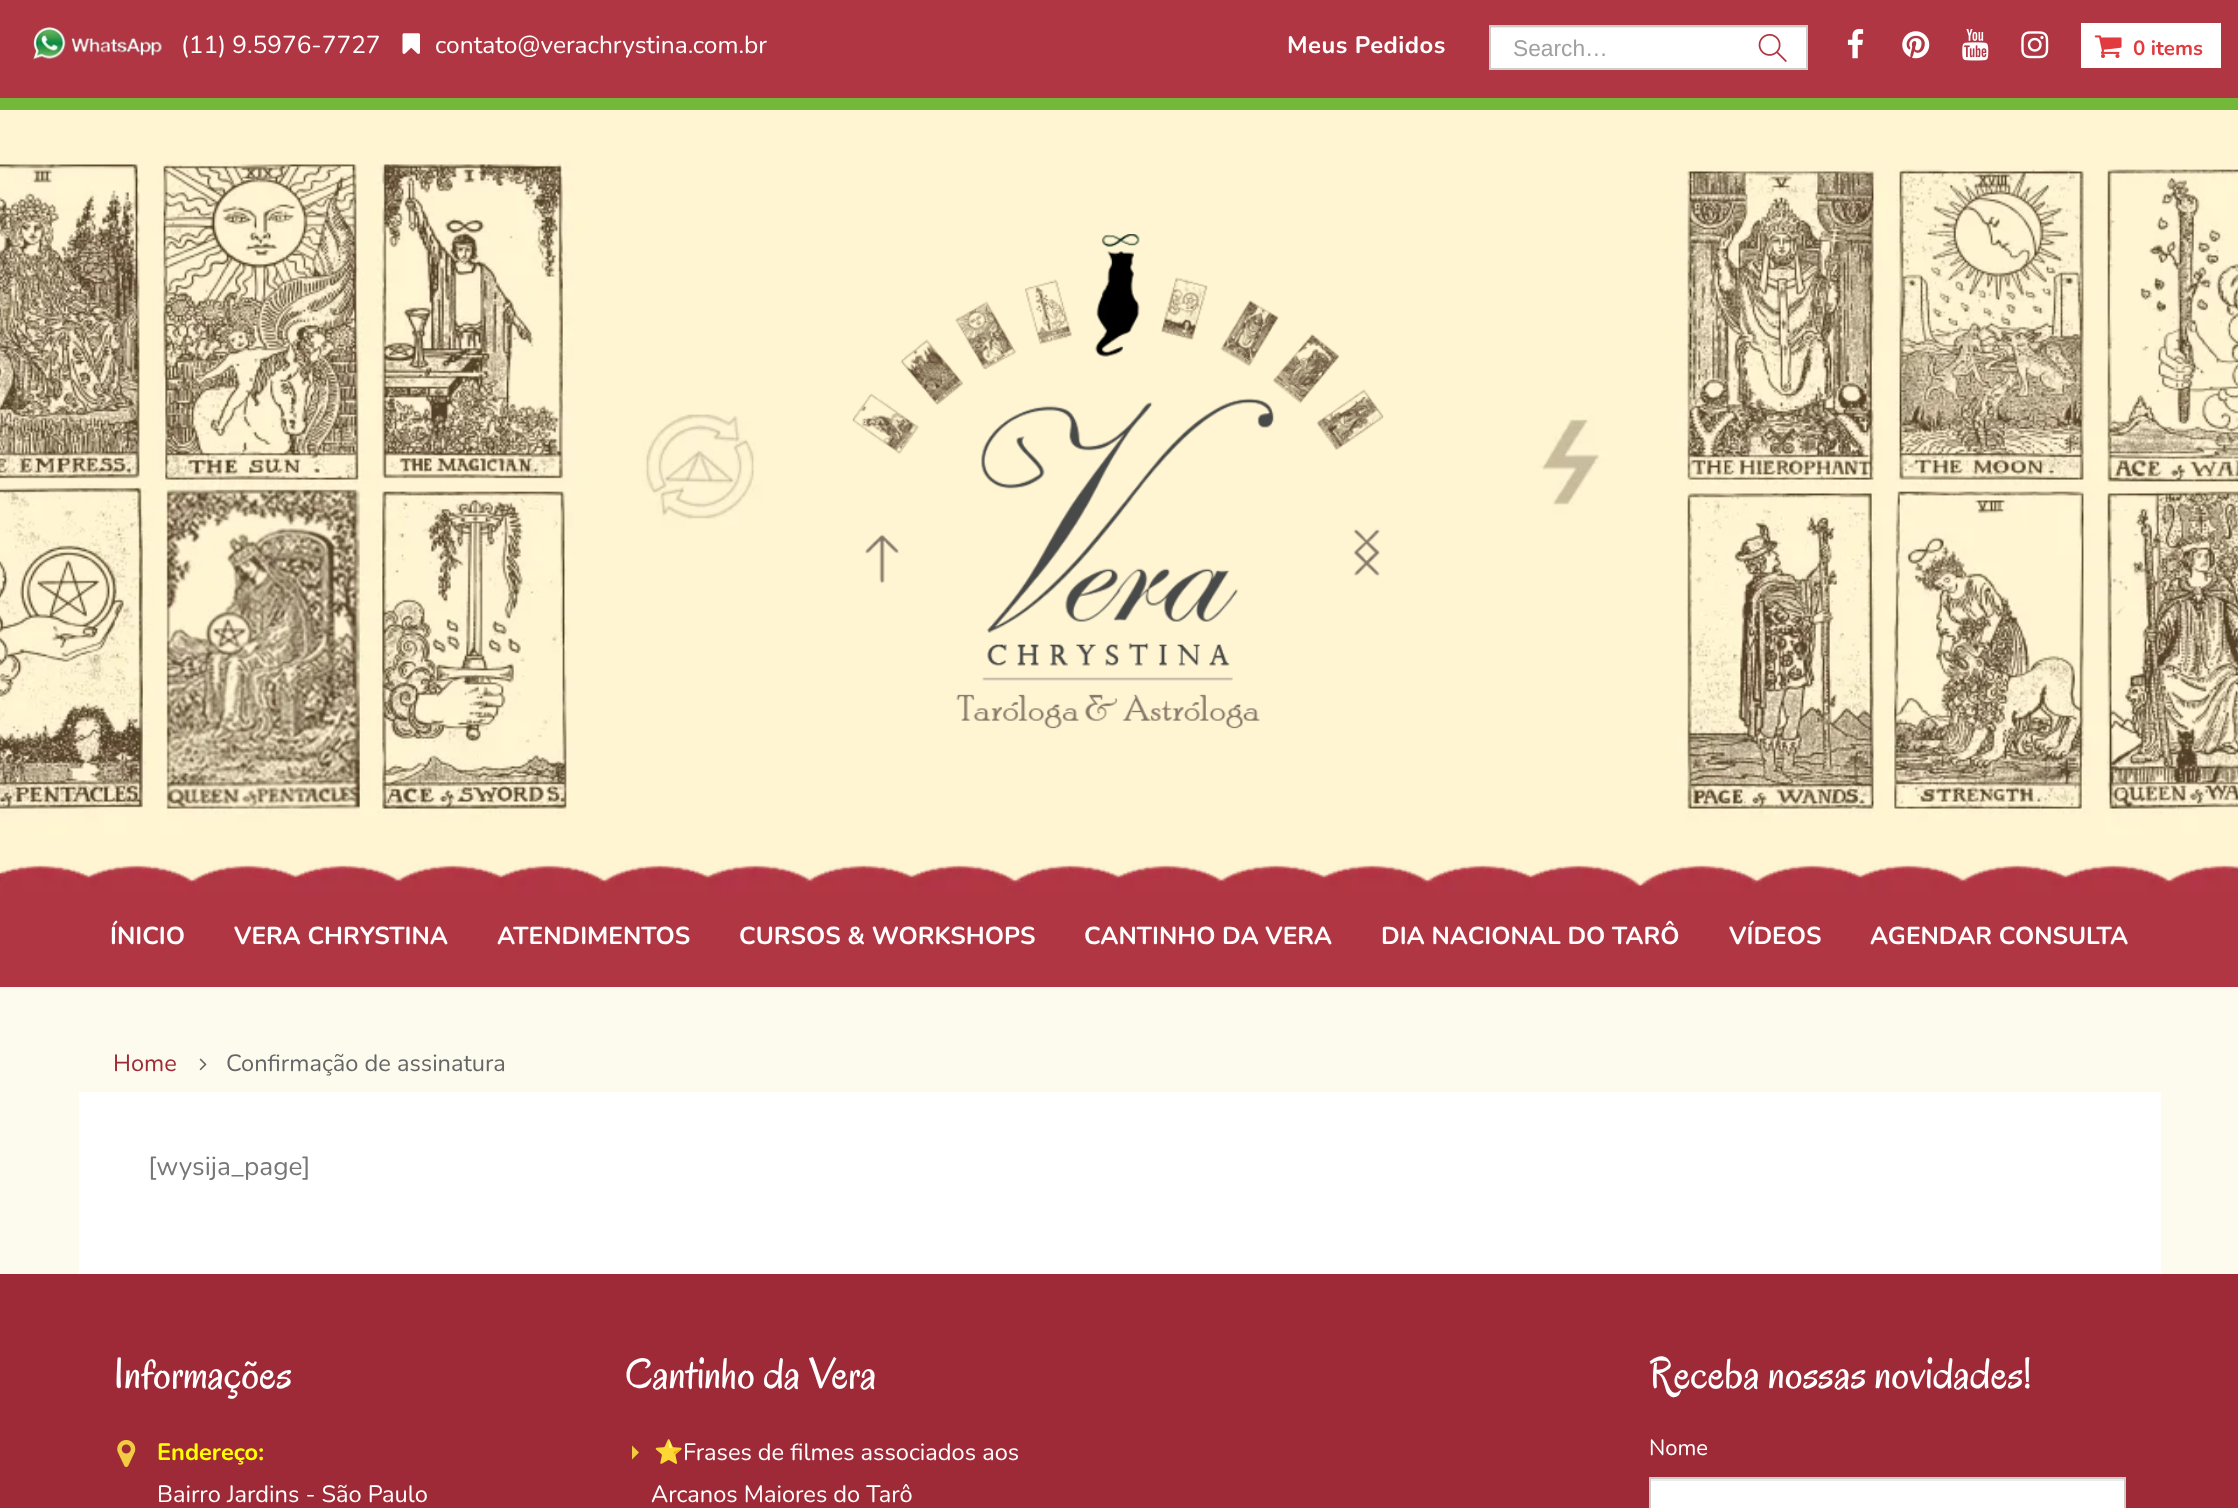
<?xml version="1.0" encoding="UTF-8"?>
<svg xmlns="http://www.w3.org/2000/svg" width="2238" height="1508">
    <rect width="100%" height="100%" fill="#FDFAEE"/>
    <rect x="0" y="0" width="2238" height="98" fill="#B03643"/>
    <rect x="0" y="98" width="2238" height="12" fill="#74B839"/>
    <image x="33" y="27" width="129" height="33" href="img_01.png"/>
    <text x="181" y="53" font-family="Nunito" font-size="24.5" fill="#FFFFFF">(11) 9.5976-7727</text>
    <image x="402" y="33" width="18" height="21" href="img_02.png"/>
    <text x="435" y="53" font-family="Nunito" font-size="24.5" fill="#FFFFFF">contato@verachrystina.com.br</text>
    <text x="1287" y="53" font-family="Nunito" font-size="23.75" font-weight="700" letter-spacing="0.5" fill="#FFFFFF">Meus Pedidos</text>
    <rect x="1491" y="28" width="315" height="40" fill="#FFFFFF"/>
    <rect x="1491" y="27" width="315" height="1" fill="#ECECEC"/>
    <rect x="1490" y="26" width="317" height="43" fill="none" stroke="#CCCCCC" stroke-width="2"/>
    <text x="1513" y="56" font-family="Liberation Sans" font-size="22.75" fill="#A0A0A0">Search…</text>
    <image x="1758" y="33" width="29" height="29" href="img_03.png"/>
    <image x="1847" y="29" width="17" height="30" href="img_04.png"/>
    <image x="1902" y="31" width="28" height="28" href="img_05.png"/>
    <image x="1962" y="29" width="27" height="32" href="img_06.png"/>
    <image x="2021" y="31" width="28" height="28" href="img_07.png"/>
    <rect x="2081" y="23" width="140" height="45" fill="#FFFFFF"/>
    <image x="2094" y="35" width="28" height="23" href="img_08.png"/>
    <text x="2133" y="55" font-family="Nunito" font-size="20.5" font-weight="700" fill="#E13B3F">0 items</text>
    <rect x="0" y="110" width="2238" height="52" fill="#FFF5D2"/>
    <image x="0" y="162" width="2238" height="727" href="img_09.png"/>
    <image x="852" y="234" width="532" height="495" href="img_10.png"/>
    <image x="0" y="864" width="2238" height="123" href="img_11.png"/>
    <text x="110" y="944" font-family="Nunito" font-size="24.5" font-weight="700" fill="#FFFFFF">ÍNICIO</text>
    <text x="234" y="944" font-family="Nunito" font-size="24.5" font-weight="700" fill="#FFFFFF">VERA CHRYSTINA</text>
    <text x="497" y="944" font-family="Nunito" font-size="24.5" font-weight="700" fill="#FFFFFF">ATENDIMENTOS</text>
    <text x="739" y="944" font-family="Nunito" font-size="24.5" font-weight="700" fill="#FFFFFF">CURSOS &amp; WORKSHOPS</text>
    <text x="1084" y="944" font-family="Nunito" font-size="24.5" font-weight="700" fill="#FFFFFF">CANTINHO DA VERA</text>
    <text x="1381" y="944" font-family="Nunito" font-size="24.5" font-weight="700" fill="#FFFFFF">DIA NACIONAL DO TARÔ</text>
    <text x="1729" y="944" font-family="Nunito" font-size="24.5" font-weight="700" fill="#FFFFFF">VÍDEOS</text>
    <text x="1870" y="944" font-family="Nunito" font-size="24.5" font-weight="700" fill="#FFFFFF">AGENDAR CONSULTA</text>
    <text x="113" y="1071" font-family="Nunito" font-size="23.6" fill="#9F2A37">Home</text>
    <image x="199" y="1058" width="8" height="13" href="img_12.png"/>
    <text x="226" y="1071" font-family="Nunito" font-size="23.6" fill="#666666">Confirmação de assinatura</text>
    <rect x="79" y="1092" width="2082" height="182" fill="#FFFFFF"/>
    <text x="148" y="1175" font-family="Nunito" font-size="26.25" fill="#777777">[wysija_page]</text>
    <rect x="0" y="1274" width="2238" height="234" fill="#9F2A37"/>
    <text x="113" y="1388" font-family="Oregano" font-size="43.75" fill="#FFFFFF">Informações</text>
    <image x="117" y="1440" width="19" height="27" href="img_13.png"/>
    <text x="157" y="1460" font-family="Nunito" font-size="23.6" font-weight="700" fill="#FFFF00">Endereço:</text>
    <text x="157" y="1502" font-family="Nunito" font-size="23.6" fill="#FFFFFF">Bairro Jardins - São Paulo</text>
    <text x="625" y="1388" font-family="Oregano" font-size="43.75" fill="#FFFFFF">Cantinho da Vera</text>
    <path d="M 632 1459.5 V 1445.5 L 639 1452.5 Z" fill="#F2CB42"/>
    <text x="654" y="1460" font-family="Noto Color Emoji" font-size="23.6" fill="#FFFFFF">⭐</text>
    <text x="683" y="1460" font-family="Nunito" font-size="23.6" fill="#FFFFFF">Frases de filmes associados aos</text>
    <text x="651" y="1502" font-family="Nunito" font-size="23.6" fill="#FFFFFF">Arcanos Maiores do Tarô</text>
    <text x="1649" y="1388" font-family="Oregano" font-size="43.75" fill="#FFFFFF">Receba nossas novidades!</text>
    <text x="1649" y="1455" font-family="Nunito" font-size="22" fill="#FFFFFF">Nome</text>
    <rect x="1651" y="1481" width="473" height="27" fill="#FFFFFF"/>
    <rect x="1650" y="1479" width="475" height="2" fill="#ECECEC"/>
    <rect x="1650" y="1478" width="475" height="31" fill="none" stroke="#CCCCCC" stroke-width="2"/>
</svg>
